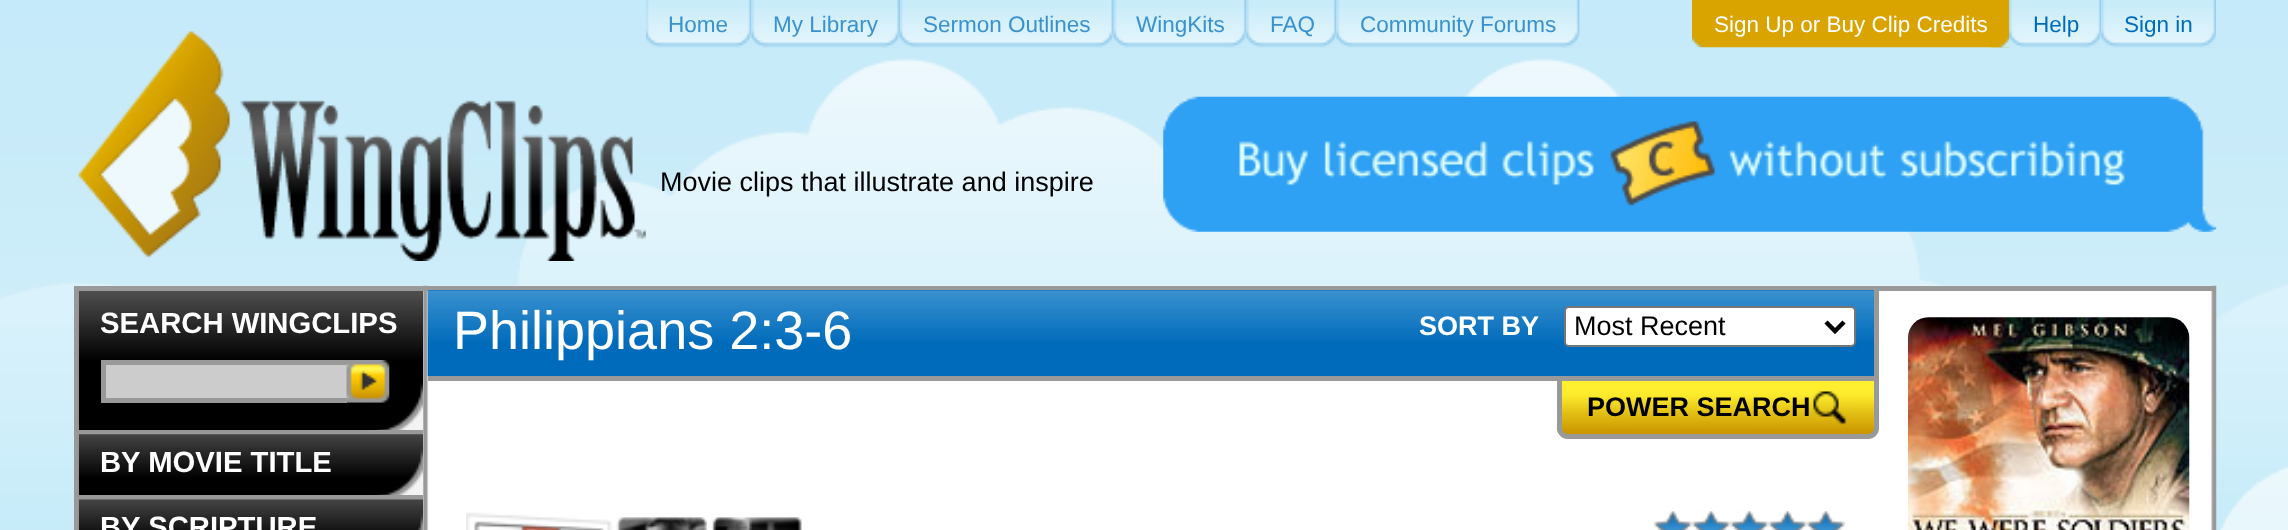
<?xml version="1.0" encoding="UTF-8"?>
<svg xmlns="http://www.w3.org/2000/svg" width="2288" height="530">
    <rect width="100%" height="100%" fill="#FFFFFF"/>
    <image x="0" y="0" width="2288" height="530" href="img_01.png"/>
    <image x="646" y="0" width="106" height="48" href="img_02.png"/>
    <image x="734" y="0" width="18" height="48" href="img_03.png"/>
    <text x="668" y="32" font-family="Liberation Sans" font-size="22.5" fill="#3991CE">Home</text>
    <image x="751" y="0" width="149" height="48" href="img_04.png"/>
    <image x="882" y="0" width="18" height="48" href="img_05.png"/>
    <text x="773" y="32" font-family="Liberation Sans" font-size="22.5" fill="#3991CE">My Library</text>
    <image x="900" y="0" width="214" height="48" href="img_06.png"/>
    <image x="1096" y="0" width="18" height="48" href="img_07.png"/>
    <text x="923" y="32" font-family="Liberation Sans" font-size="22.5" fill="#3991CE">Sermon Outlines</text>
    <image x="1113" y="0" width="134" height="48" href="img_08.png"/>
    <image x="1229" y="0" width="18" height="48" href="img_09.png"/>
    <text x="1136" y="32" font-family="Liberation Sans" font-size="22.5" fill="#3991CE">WingKits</text>
    <image x="1246" y="0" width="91" height="48" href="img_10.png"/>
    <image x="1319" y="0" width="18" height="48" href="img_09.png"/>
    <text x="1270" y="32" font-family="Liberation Sans" font-size="22.5" fill="#3991CE">FAQ</text>
    <image x="1336" y="0" width="244" height="48" href="img_11.png"/>
    <image x="1562" y="0" width="18" height="48" href="img_09.png"/>
    <text x="1360" y="32" font-family="Liberation Sans" font-size="22.5" fill="#3991CE">Community Forums</text>
    <image x="1692" y="0" width="318" height="48" href="img_12.png"/>
    <image x="1991" y="0" width="19" height="48" href="img_13.png"/>
    <text x="1714" y="32" font-family="Liberation Sans" font-size="22.5" fill="#FFFFFF">Sign Up or Buy Clip Credits</text>
    <image x="2009" y="0" width="93" height="48" href="img_14.png"/>
    <image x="2084" y="0" width="18" height="48" href="img_09.png"/>
    <text x="2033" y="32" font-family="Liberation Sans" font-size="22.5" fill="#006BBA">Help</text>
    <image x="2101" y="0" width="115" height="48" href="img_15.png"/>
    <image x="2199" y="0" width="17" height="48" href="img_16.png"/>
    <text x="2124" y="32" font-family="Liberation Sans" font-size="22.5" fill="#006BBA">Sign in</text>
    <image x="78" y="31" width="568" height="230" href="img_17.png"/>
    <text x="660" y="191" font-family="Liberation Sans" font-size="27" fill="#000000">Movie clips that illustrate and inspire</text>
    <image x="1163" y="96" width="1054" height="136" href="img_18.png"/>
    <image x="78" y="285" width="2139" height="245" href="img_19.png"/>
    <rect x="74" y="286" width="2142" height="5" fill="#999999"/>
    <rect x="74" y="286" width="5" height="244" fill="#999999"/>
    <image x="78" y="290" width="345" height="147" href="img_20.png"/>
    <rect x="79" y="290" width="344" height="1" fill="#999999"/>
    <text x="100" y="333" font-family="Liberation Sans" font-size="29.25" font-weight="700" fill="#FFFFFF">SEARCH WINGCLIPS</text>
    <rect x="106" y="365" width="241" height="33" fill="#CCCCCC"/>
    <rect x="101" y="360" width="246" height="5" fill="#999999"/>
    <rect x="101" y="398" width="246" height="5" fill="#999999"/>
    <rect x="101" y="360" width="5" height="43" fill="#999999"/>
    <image x="346" y="360" width="44" height="43" href="img_21.png"/>
    <rect x="79" y="430" width="344" height="5" fill="#999999"/>
    <image x="78" y="434" width="345" height="68" href="img_22.png"/>
    <text x="100" y="472" font-family="Liberation Sans" font-size="29.25" font-weight="700" fill="#FFFFFF">BY MOVIE TITLE</text>
    <rect x="79" y="495" width="344" height="5" fill="#999999"/>
    <image x="78" y="499" width="345" height="31" href="img_23.png"/>
    <text x="100" y="537" font-family="Liberation Sans" font-size="29.25" font-weight="700" fill="#FFFFFF">BY SCRIPTURE</text>
    <rect x="428" y="290" width="1446" height="86" fill="#006BBB"/>
    <image x="427" y="290" width="1447" height="86" href="img_24.png"/>
    <rect x="1874" y="290" width="5" height="90" fill="#999999"/>
    <rect x="428" y="376" width="1129" height="5" fill="#999999"/>
    <text x="453" y="349" font-family="Liberation Sans" font-size="54" fill="#FFFFFF">Philippians 2:3-6</text>
    <text x="1419" y="335" font-family="Liberation Sans" font-size="27" font-weight="700" fill="#FFFFFF">SORT BY</text>
    <rect x="1565" y="307" width="290" height="39" rx="4" fill="#FFFFFF" stroke="#767676" stroke-width="2"/>
    <path d="M 1826 322 L 1835 331 L 1844 322" fill="none" stroke="#000000" stroke-width="4.5"/>
    <text x="1574" y="335" font-family="Liberation Sans" font-size="27" fill="#000000">Most Recent</text>
    <image x="1557" y="381" width="322" height="58" href="img_25.png"/>
    <path d="M 1559.5 378.5 H 1876.5 V 428 C 1876.5 432.5 1872.5 436.5 1868 436.5 H 1568 C 1563.5 436.5 1559.5 432.5 1559.5 428 Z" fill="none" stroke="#999999" stroke-width="5"/>
    <image x="1813" y="391" width="34" height="34" href="img_26.png"/>
    <text x="1587" y="416" font-family="Liberation Sans" font-size="27" font-weight="700" fill="#000000">POWER SEARCH</text>
    <image x="466" y="512" width="336" height="18" href="img_27.png"/>
    <image x="1654" y="511" width="191" height="19" href="img_28.png"/>
    <image x="1907" y="317" width="283" height="213" href="img_29.png"/>
</svg>
